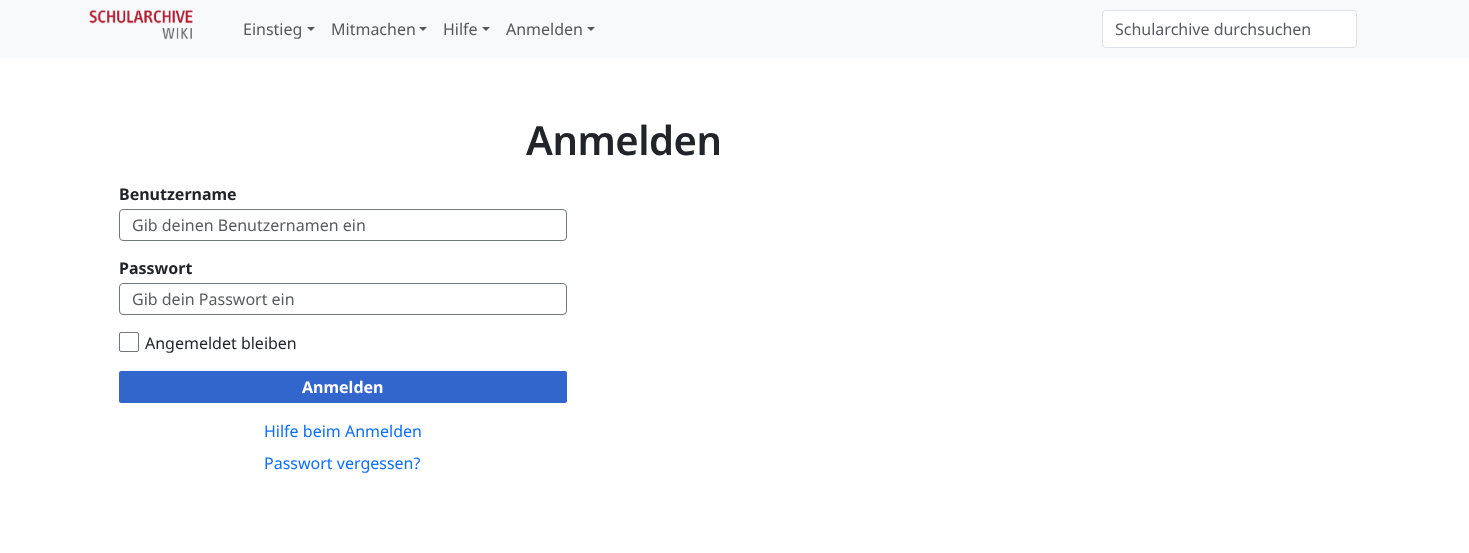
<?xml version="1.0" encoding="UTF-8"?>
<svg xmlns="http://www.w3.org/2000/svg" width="1469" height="553">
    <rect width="100%" height="100%" fill="#FFFFFF"/>
    <rect x="0" y="0" width="1469" height="58" fill="#F8F9FA"/>
    <image x="89" y="9" width="104" height="31" href="img_01.png"/>
    <text x="243" y="35" font-family="Noto Sans" font-size="16" fill="#575758">Einstieg</text>
    <path d="M 307 27 H 315 L 311 31 Z" fill="#575758"/>
    <text x="331" y="35" font-family="Noto Sans" font-size="16" fill="#575758">Mitmachen</text>
    <path d="M 419 27 H 427 L 423 31 Z" fill="#575758"/>
    <text x="443" y="35" font-family="Noto Sans" font-size="16" fill="#575758">Hilfe</text>
    <path d="M 482 27 H 490 L 486 31 Z" fill="#575758"/>
    <text x="506" y="35" font-family="Noto Sans" font-size="16" fill="#575758">Anmelden</text>
    <path d="M 587 27 H 595 L 591 31 Z" fill="#575758"/>
    <rect x="1102.5" y="10.5" width="254" height="37" rx="3.5" fill="#FFFFFF" stroke="#DEE2E6"/>
    <text x="1115" y="35" font-family="Noto Sans" font-size="16" fill="#595C5F">Schularchive durchsuchen</text>
    <text x="526" y="155" font-family="Noto Sans" font-size="40" font-weight="600" letter-spacing="-0.5" fill="#212529">Anmelden</text>
    <text x="119" y="200" font-family="Noto Sans" font-size="16" font-weight="700" fill="#212529">Benutzername</text>
    <rect x="119.5" y="209.5" width="447" height="31" rx="3.5" fill="none" stroke="#72777D"/>
    <text x="132" y="231" font-family="Noto Sans" font-size="16" fill="#595C5F">Gib deinen Benutzernamen ein</text>
    <text x="119" y="274" font-family="Noto Sans" font-size="16" font-weight="700" fill="#212529">Passwort</text>
    <rect x="119.5" y="283.5" width="447" height="31" rx="3.5" fill="none" stroke="#72777D"/>
    <text x="132" y="305" font-family="Noto Sans" font-size="16" fill="#595C5F">Gib dein Passwort ein</text>
    <rect x="119.5" y="332.5" width="19" height="19" rx="1.5" fill="none" stroke="#72777D"/>
    <text x="145" y="349" font-family="Noto Sans" font-size="16" fill="#212529">Angemeldet bleiben</text>
    <rect x="119" y="371" width="448" height="32" rx="2" fill="#3366CC"/>
    <text x="302" y="393" font-family="Noto Sans" font-size="16" font-weight="700" fill="#FFFFFF">Anmelden</text>
    <text x="264" y="437" font-family="Noto Sans" font-size="16" fill="#0D6EFD">Hilfe beim Anmelden</text>
    <text x="264" y="469" font-family="Noto Sans" font-size="16" fill="#0D6EFD">Passwort vergessen?</text>
</svg>
